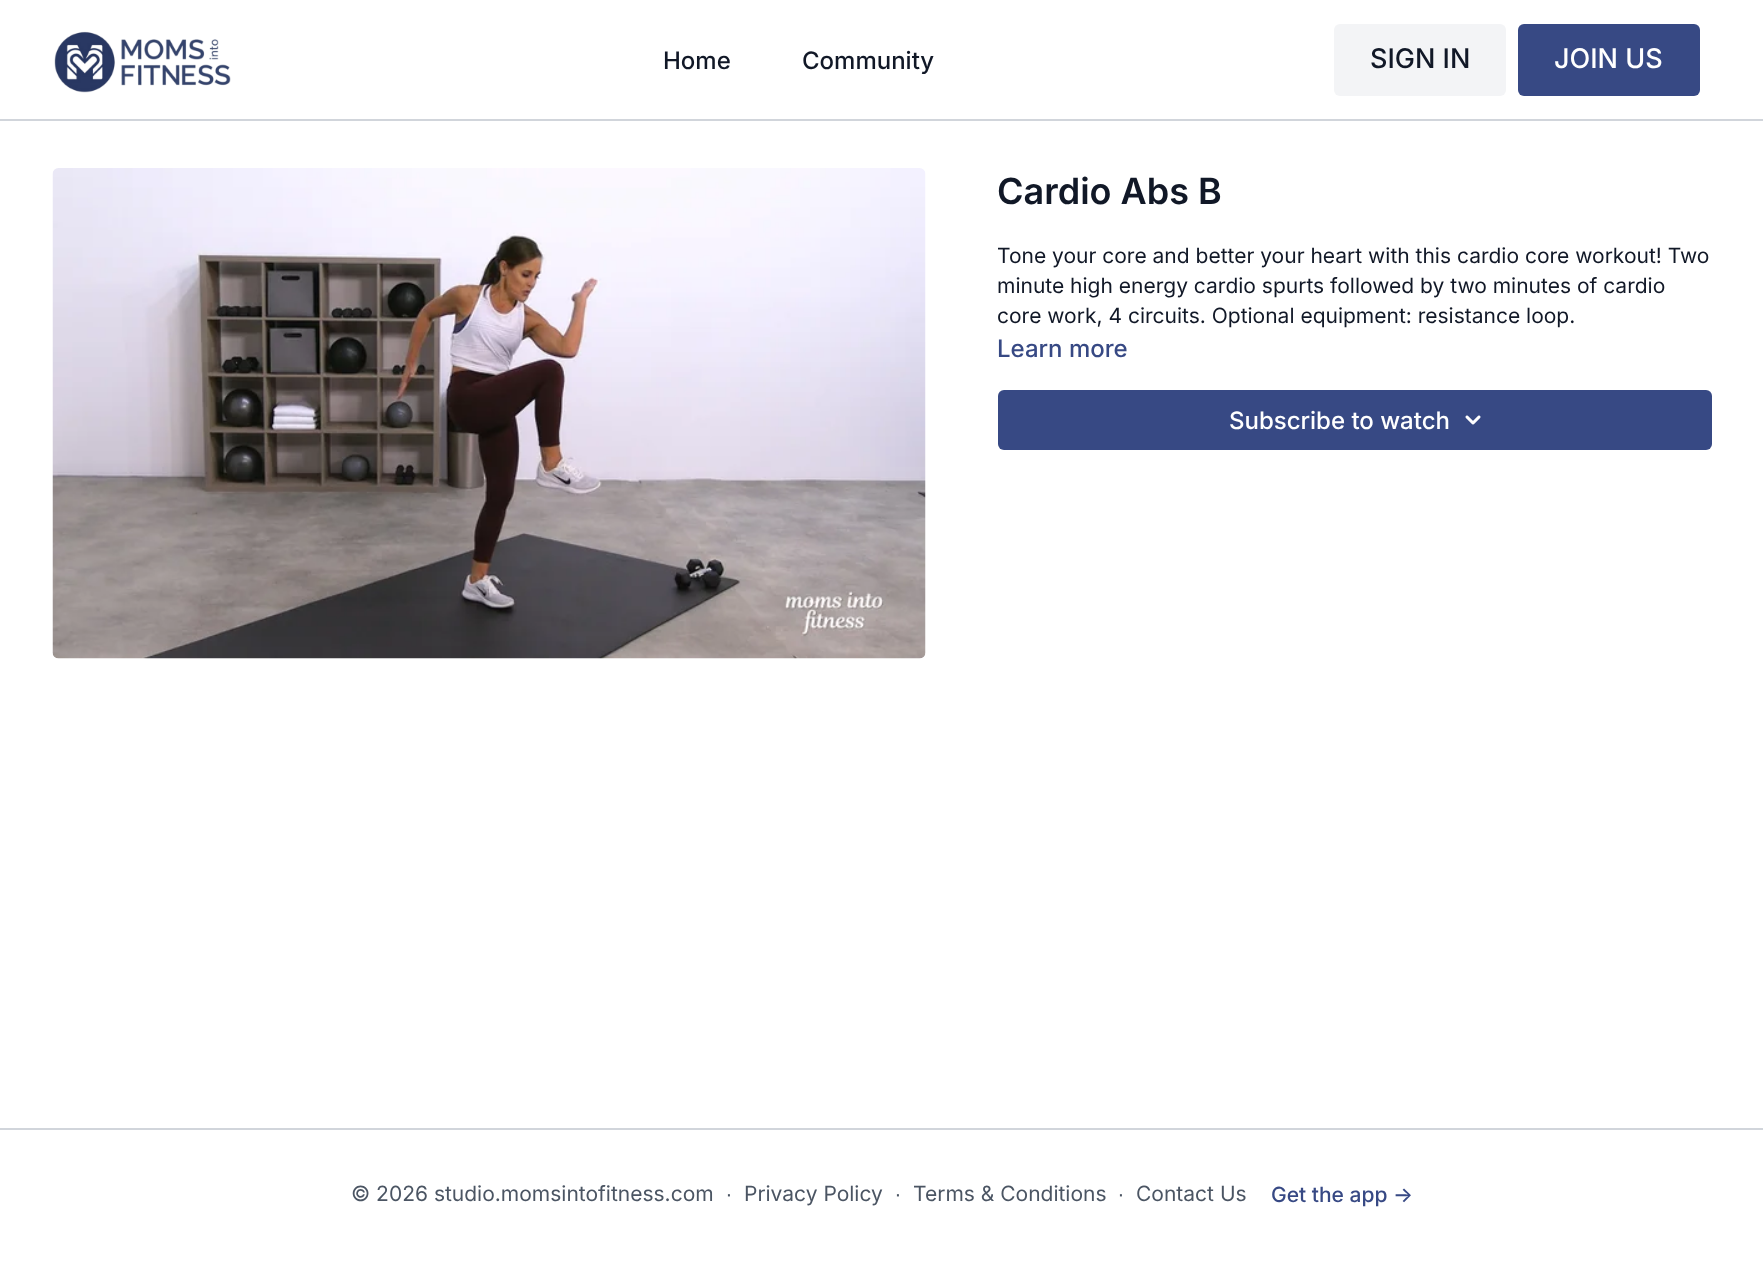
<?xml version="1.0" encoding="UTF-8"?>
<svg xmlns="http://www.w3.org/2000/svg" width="1763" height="1269">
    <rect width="100%" height="100%" fill="#FFFFFF"/>
    <rect x="0" y="119" width="1763" height="2" fill="#D1D5DB"/>
    <image x="54" y="31" width="177" height="62" href="img_01.png"/>
    <text x="663" y="69" font-family="Inter" font-size="24" font-weight="500" fill="#111827">Home</text>
    <text x="802" y="69" font-family="Inter" font-size="24" font-weight="500" fill="#111827">Community</text>
    <rect x="1334" y="24" width="172" height="72" rx="6" fill="#F3F4F6"/>
    <text x="1370" y="68" font-family="Inter" font-size="27" font-weight="500" fill="#111827">SIGN IN</text>
    <rect x="1518" y="24" width="182" height="72" rx="6" fill="#374984"/>
    <text x="1554" y="68" font-family="Inter" font-size="27" font-weight="500" fill="#FFFFFF">JOIN US</text>
    <image x="52" y="168" width="874" height="491" href="img_02.png"/>
    <text x="997" y="204" font-family="Inter" font-size="36" font-weight="600" fill="#111827">Cardio Abs B</text>
    <text font-family="Inter" font-size="21" fill="#111827">
        <tspan x="997" y="263">Tone your core and better your heart with this cardio core workout! Two</tspan>
        <tspan x="997" y="293">minute high energy cardio spurts followed by two minutes of cardio</tspan>
        <tspan x="997" y="323">core work, 4 circuits. Optional equipment: resistance loop.</tspan>
    </text>
    <text x="997" y="357" font-family="Inter" font-size="24" font-weight="500" fill="#374984">Learn more</text>
    <rect x="998" y="390" width="714" height="60" rx="6" fill="#374984"/>
    <text x="1229" y="429" font-family="Inter" font-size="24" font-weight="500" fill="#FFFFFF">Subscribe to watch</text>
    <image x="1465" y="415" width="16" height="10" href="img_03.png"/>
    <rect x="0" y="1128" width="1763" height="2" fill="#D1D5DB"/>
    <text x="351" y="1201" font-family="Inter" font-size="21" fill="#4B5563">© 2026 studio.momsintofitness.com</text>
    <text x="726" y="1201" font-family="Liberation Sans" font-size="21" fill="#4B5563">∙</text>
    <text x="744" y="1201" font-family="Inter" font-size="21" fill="#4B5563">Privacy Policy</text>
    <text x="895" y="1201" font-family="Liberation Sans" font-size="21" fill="#4B5563">∙</text>
    <text x="913" y="1201" font-family="Inter" font-size="21" fill="#4B5563">Terms &amp; Conditions</text>
    <text x="1118" y="1201" font-family="Liberation Sans" font-size="21" fill="#4B5563">∙</text>
    <text x="1136" y="1201" font-family="Inter" font-size="21" fill="#4B5563">Contact Us</text>
    <text x="1271" y="1202" font-family="Inter" font-size="21" font-weight="500" fill="#374984">Get the app -&gt;</text>
</svg>
